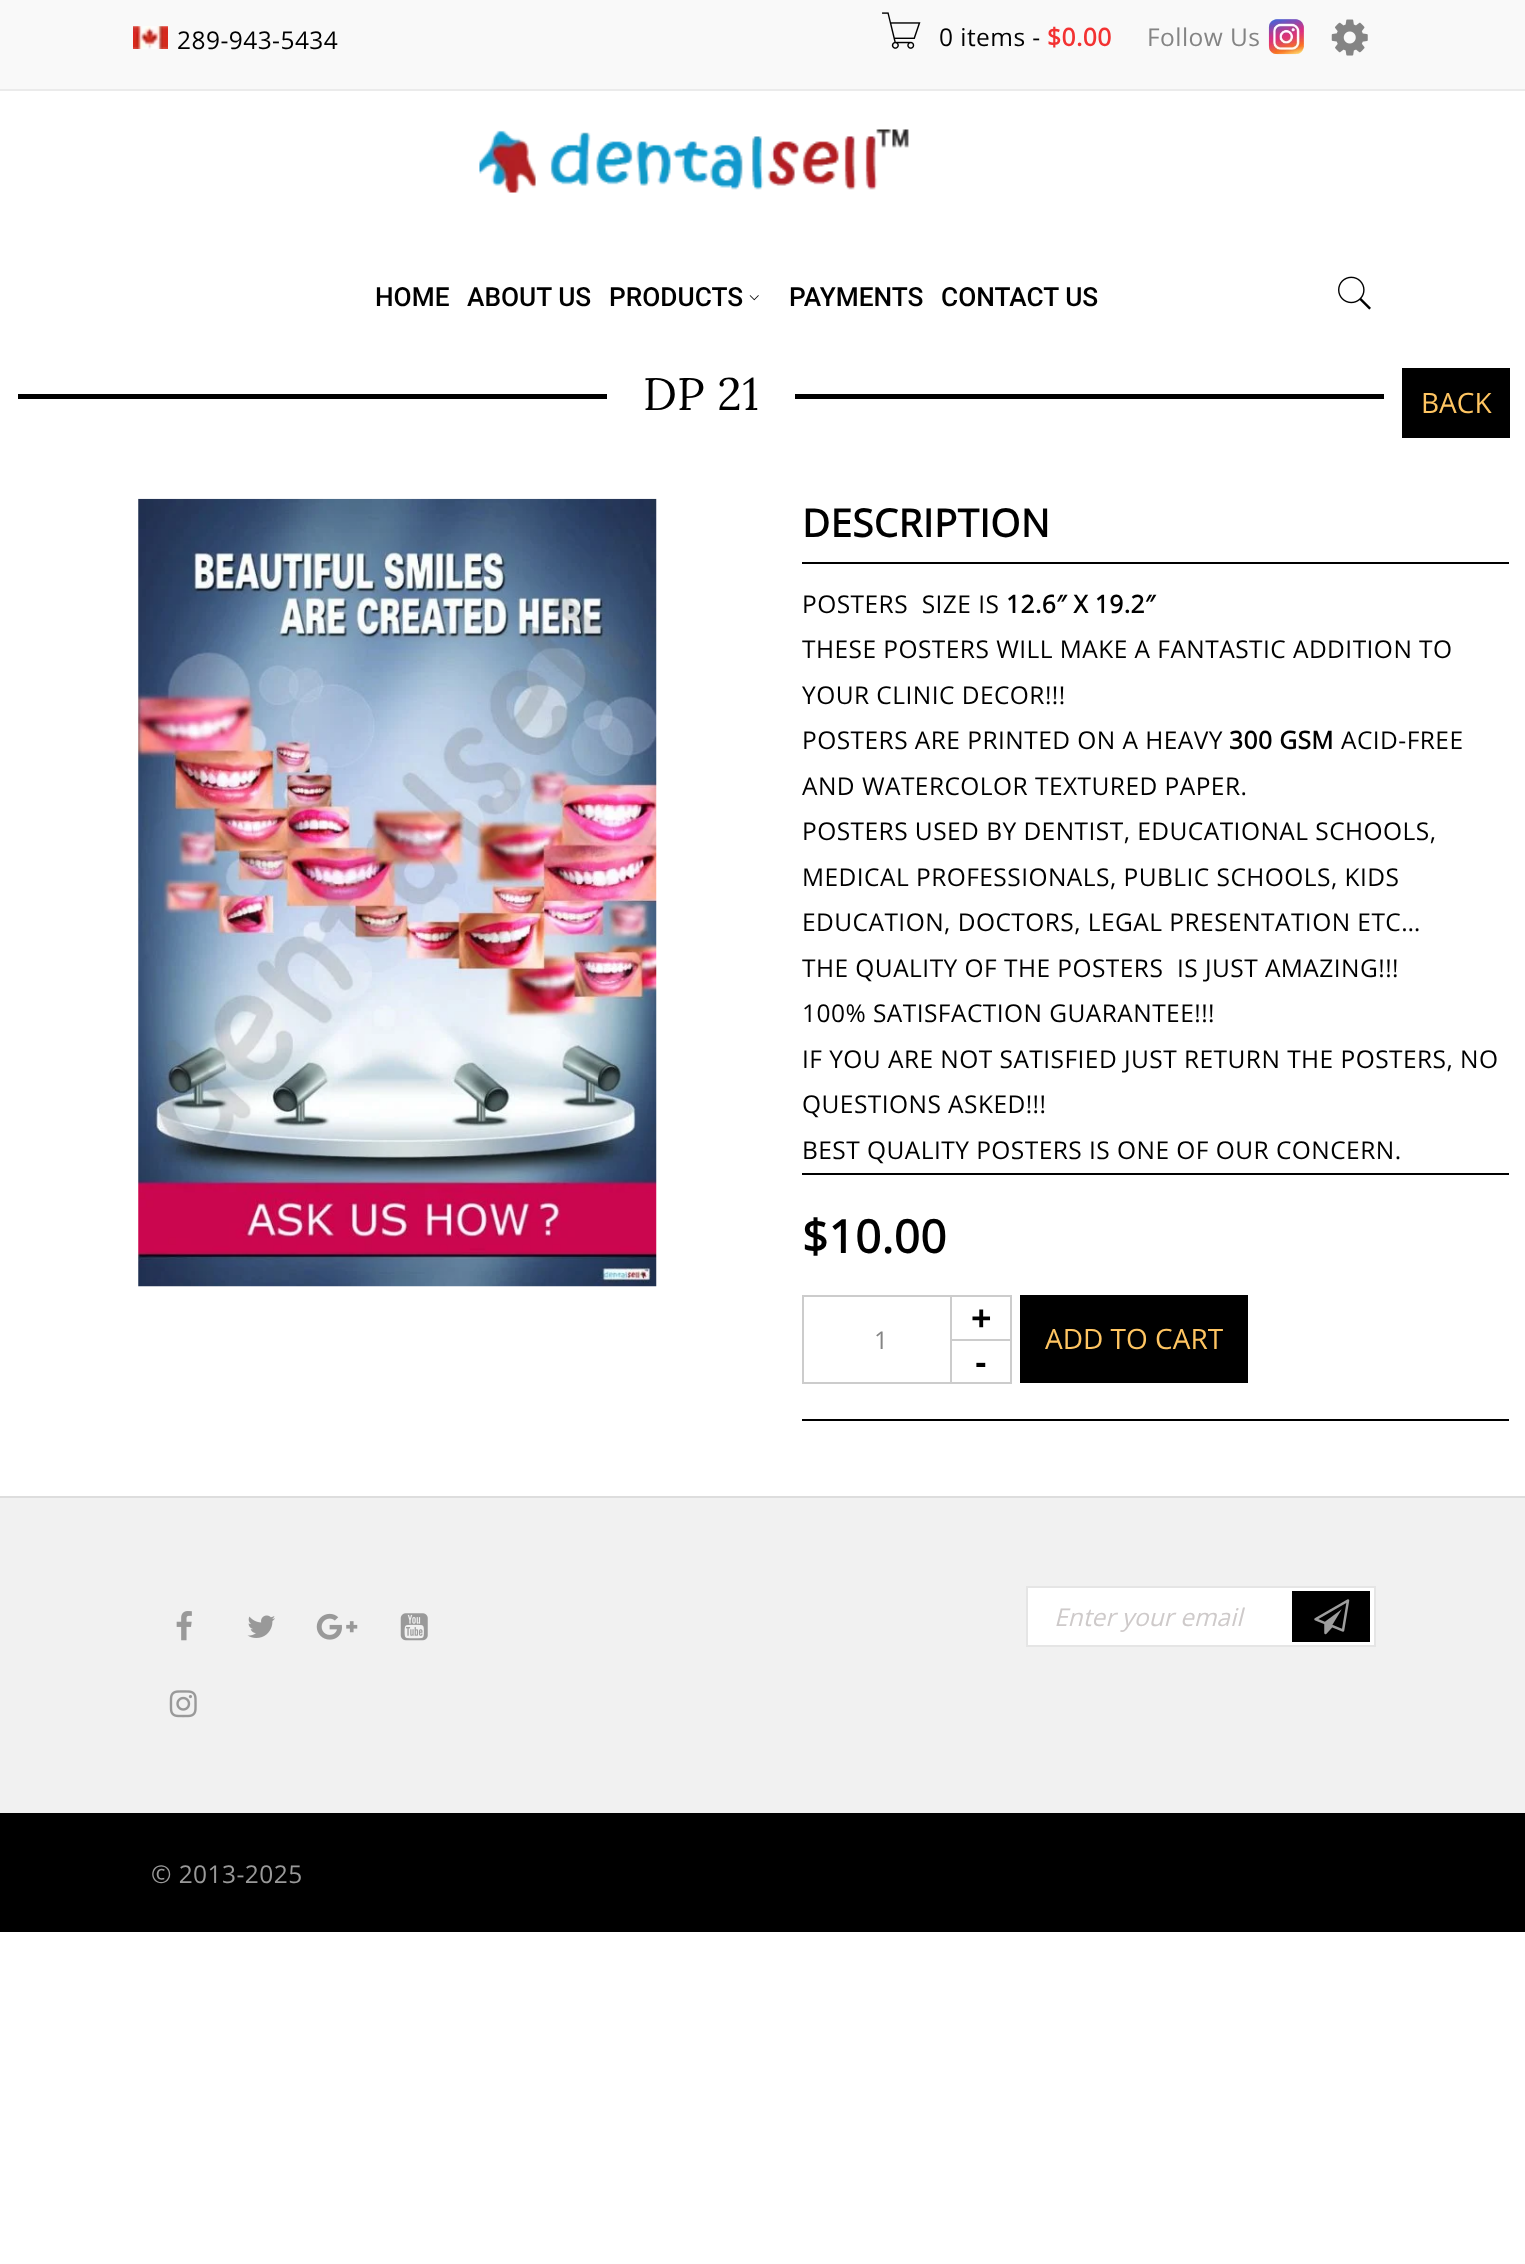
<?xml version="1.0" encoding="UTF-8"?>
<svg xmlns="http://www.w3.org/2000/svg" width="1525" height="2264">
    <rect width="100%" height="100%" fill="#FFFFFF"/>
    <rect x="0" y="0" width="1525" height="89" fill="#F9F9F9"/>
    <rect x="0" y="89" width="1525" height="2" fill="#EBEBEB"/>
    <image x="133" y="26" width="35" height="23" href="img_01.png"/>
    <text x="177" y="49" font-family="Open Sans" font-size="24.5" letter-spacing="0.45" fill="#000000">289-943-5434</text>
    <image x="882" y="12" width="39" height="37" href="img_02.png"/>
    <text x="939" y="46" font-family="Open Sans" font-size="24.5" letter-spacing="0.45" fill="#000000">0 items -</text>
    <text x="1047" y="46" font-family="Open Sans" font-size="24.5" font-weight="700" letter-spacing="0.45" fill="#F33232">$0.00</text>
    <text x="1147" y="46" font-family="Open Sans" font-size="24.5" letter-spacing="0.45" fill="#848484">Follow Us</text>
    <image x="1268" y="19" width="36" height="36" href="img_03.png"/>
    <image x="1331" y="19" width="37" height="37" href="img_04.png"/>
    <image x="479" y="129" width="430" height="64" href="img_05.png"/>
    <text x="375" y="306" font-family="Roboto" font-size="26.25" font-weight="500" fill="#000000">HOME</text>
    <text x="467" y="306" font-family="Roboto" font-size="26.25" font-weight="500" fill="#000000">ABOUT US</text>
    <text x="609" y="306" font-family="Roboto" font-size="26.25" font-weight="500" fill="#000000">PRODUCTS</text>
    <image x="749" y="295" width="10" height="6" href="img_06.png"/>
    <text x="789" y="306" font-family="Roboto" font-size="26.25" font-weight="500" fill="#000000">PAYMENTS</text>
    <text x="941" y="306" font-family="Roboto" font-size="26.25" font-weight="500" fill="#000000">CONTACT US</text>
    <image x="1338" y="276" width="33" height="34" href="img_07.png"/>
    <rect x="18" y="394" width="589" height="5" fill="#000000"/>
    <text x="643" y="410" font-family="Lora" font-size="45.5" letter-spacing="0.45" fill="#000000">DP 21</text>
    <rect x="795" y="394" width="589" height="5" fill="#000000"/>
    <rect x="1402" y="368" width="108" height="70" fill="#000000"/>
    <text x="1421" y="413" font-family="Open Sans" font-size="28" fill="#FFC562">BACK</text>
    <image x="138" y="498" width="519" height="789" href="img_08.png"/>
    <rect x="802" y="562" width="707" height="2" fill="#000000"/>
    <text x="802" y="537" font-family="Open Sans" font-size="38.5" font-weight="700" letter-spacing="0.45" fill="#000000">DESCRIPTION</text>
    <text x="802" y="613" font-family="Open Sans" font-size="24.5" letter-spacing="0.45" fill="#000000" xml:space="preserve">POSTERS  SIZE IS</text>
    <text x="1006" y="613" font-family="Open Sans" font-size="24.5" font-weight="700" letter-spacing="0.45" fill="#000000">12.6″ X 19.2″</text>
    <text font-family="Open Sans" font-size="24.5" letter-spacing="0.45" fill="#000000">
        <tspan x="802" y="658">THESE POSTERS WILL MAKE A FANTASTIC ADDITION TO</tspan>
        <tspan x="802" y="704">YOUR CLINIC DECOR!!!</tspan>
        <tspan x="802" y="749">POSTERS ARE PRINTED ON A HEAVY</tspan>
    </text>
    <text x="1229" y="749" font-family="Open Sans" font-size="24.5" font-weight="700" letter-spacing="0.45" fill="#000000">300 GSM</text>
    <text x="1341" y="749" font-family="Open Sans" font-size="24.5" letter-spacing="0.45" fill="#000000">ACID-FREE</text>
    <text font-family="Open Sans" font-size="24.5" letter-spacing="0.45" fill="#000000" xml:space="preserve"><tspan x="802" y="795">AND WATERCOLOR TEXTURED PAPER.</tspan><tspan x="802" y="840">POSTERS USED BY DENTIST, EDUCATIONAL SCHOOLS,</tspan><tspan x="802" y="886">MEDICAL PROFESSIONALS, PUBLIC SCHOOLS, KIDS</tspan><tspan x="802" y="931">EDUCATION, DOCTORS, LEGAL PRESENTATION ETC…</tspan><tspan x="802" y="977">THE QUALITY OF THE POSTERS  IS JUST AMAZING!!!</tspan><tspan x="802" y="1022">100% SATISFACTION GUARANTEE!!!</tspan><tspan x="802" y="1068">IF YOU ARE NOT SATISFIED JUST RETURN THE POSTERS, NO</tspan><tspan x="802" y="1113">QUESTIONS ASKED!!!</tspan><tspan x="802" y="1159">BEST QUALITY POSTERS IS ONE OF OUR CONCERN.</tspan></text>
    <rect x="802" y="1173" width="707" height="2" fill="#000000"/>
    <text x="802" y="1253" font-family="Open Sans" font-size="45.5" font-weight="700" letter-spacing="0.45" fill="#000000">$10.00</text>
    <rect x="803" y="1296" width="208" height="87" fill="none" stroke="#CCCCCC" stroke-width="2"/>
    <rect x="951" y="1340" width="60" height="43" fill="none" stroke="#CCCCCC" stroke-width="2"/>
    <rect x="951" y="1296" width="60" height="44" fill="none" stroke="#CCCCCC" stroke-width="2"/>
    <text x="971" y="1330" font-family="Liberation Sans" font-size="35" font-weight="700" fill="#000000">+</text>
    <text x="874" y="1349" font-family="Open Sans" font-size="24.5" fill="#848484">1</text>
    <text x="975" y="1374" font-family="Liberation Sans" font-size="35" font-weight="700" fill="#000000">-</text>
    <rect x="1020" y="1295" width="228" height="88" fill="#000000"/>
    <text x="1045" y="1349" font-family="Open Sans" font-size="28" fill="#FFC562">ADD TO CART</text>
    <rect x="802" y="1419" width="707" height="2" fill="#000000"/>
    <rect x="0" y="1498" width="1525" height="315" fill="#F1F1F1"/>
    <rect x="0" y="1496" width="1525" height="2" fill="#DDDDDD"/>
    <image x="176" y="1611" width="16" height="30" href="img_09.png"/>
    <image x="247" y="1615" width="28" height="23" href="img_10.png"/>
    <image x="316" y="1613" width="42" height="27" href="img_11.png"/>
    <image x="400" y="1613" width="28" height="28" href="img_12.png"/>
    <image x="169" y="1690" width="28" height="28" href="img_13.png"/>
    <rect x="1027" y="1587" width="348" height="59" fill="#FFFFFF" stroke="#E5E5E5" stroke-width="2"/>
    <text x="1054" y="1626" font-family="Open Sans" font-size="24.5" font-style="italic" fill="#CECACA">Enter your email</text>
    <rect x="1292" y="1591" width="78" height="51" fill="#000000"/>
    <image x="1314" y="1599" width="36" height="36" href="img_14.png"/>
    <rect x="0" y="1813" width="1525" height="119" fill="#000000"/>
    <text x="151" y="1883" font-family="Open Sans" font-size="24.5" letter-spacing="0.45" fill="#999999">© 2013-2025</text>
</svg>
